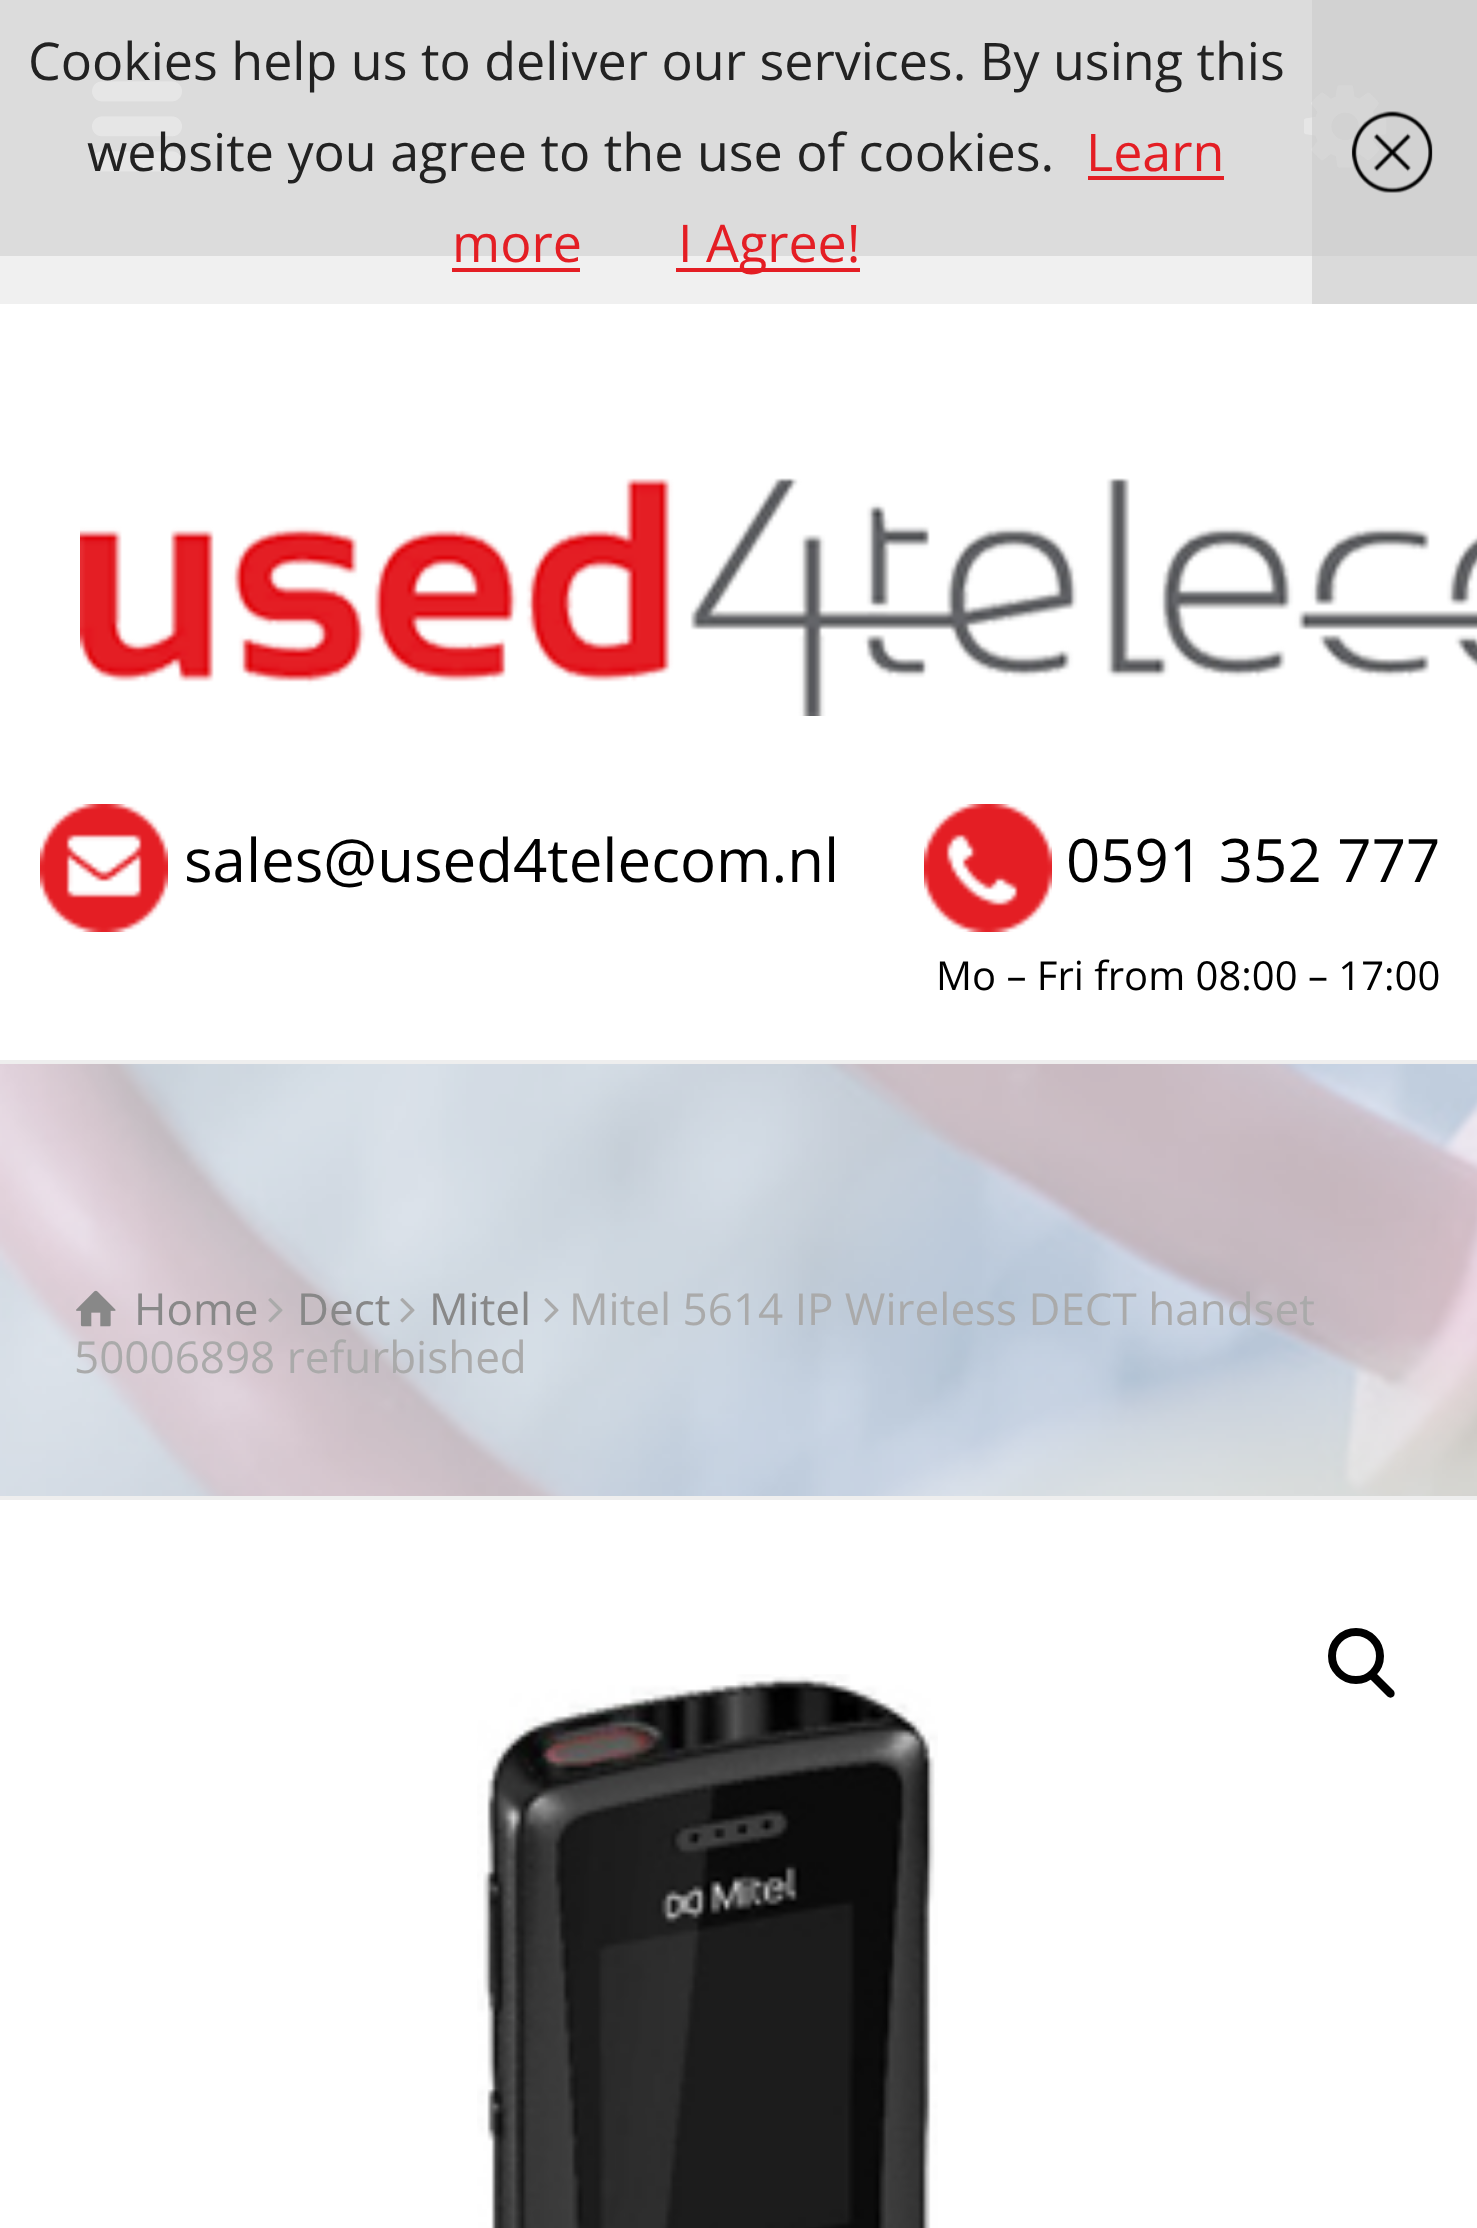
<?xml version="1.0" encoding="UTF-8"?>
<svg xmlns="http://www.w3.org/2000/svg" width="1477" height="2228">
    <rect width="100%" height="100%" fill="#FFFFFF"/>
    <rect x="0" y="256" width="1312" height="48" fill="#F0F0F0"/>
    <rect x="1312" y="256" width="165" height="48" fill="#DADADA"/>
    <rect x="0" y="0" width="1312" height="256" fill="#DCDCDC"/>
    <image x="92" y="81" width="90" height="91" href="img_02.png"/>
    <text x="28" y="80" font-family="Open Sans" font-size="52" fill="#222222">Cookies help us to deliver our services. By using this</text>
    <text x="87" y="171" font-family="Open Sans" font-size="52" fill="#222222">website you agree to the use of cookies.</text>
    <text x="1086" y="171" font-family="Open Sans" font-size="52" fill="#E41E24">Learn</text>
    <rect x="1088" y="176" width="136" height="4" fill="#E41E24"/>
    <text x="452" y="262" font-family="Open Sans" font-size="52" fill="#E41E24">more</text>
    <rect x="452" y="268" width="128" height="4" fill="#E41E24"/>
    <rect x="676" y="268" width="184" height="4" fill="#E41E24"/>
    <text x="678" y="262" font-family="Open Sans" font-size="52" fill="#E41E24">I Agree!</text>
    <rect x="1312" y="0" width="165" height="256" fill="#D2D2D2"/>
    <image x="1304" y="85" width="83" height="83" href="img_03.png"/>
    <image x="1351" y="111" width="82" height="82" href="img_01.png"/>
    <image x="80" y="478" width="1397" height="238" href="img_04.png"/>
    <image x="40" y="804" width="128" height="128" href="img_05.png"/>
    <text x="184" y="882" font-family="Open Sans" font-size="60" fill="#000000">sales@used4telecom.nl</text>
    <image x="924" y="804" width="128" height="128" href="img_06.png"/>
    <text x="1066" y="882" font-family="Open Sans" font-size="60" fill="#000000">0591 352 777</text>
    <text x="936" y="990" font-family="Open Sans" font-size="40" fill="#000000">Mo – Fri from 08:00 – 17:00</text>
    <image x="0" y="1064" width="1477" height="432" href="img_07.png"/>
    <rect x="0" y="1060" width="1477" height="4" fill="#EEEEEE"/>
    <rect x="0" y="1496" width="1477" height="4" fill="#EEEEEE"/>
    <image x="76" y="1290" width="40" height="37" href="img_08.png"/>
    <text x="134" y="1325" font-family="Open Sans" font-size="44" fill="#888888">Home</text>
    <image x="268" y="1298" width="15" height="25" href="img_09.png"/>
    <text x="297" y="1325" font-family="Open Sans" font-size="44" fill="#888888">Dect</text>
    <image x="400" y="1298" width="15" height="25" href="img_10.png"/>
    <text x="429" y="1325" font-family="Open Sans" font-size="44" fill="#888888">Mitel</text>
    <image x="544" y="1298" width="15" height="25" href="img_11.png"/>
    <text x="569" y="1325" font-family="Open Sans" font-size="44" fill="#AAAAAA">Mitel 5614 IP Wireless DECT handset</text>
    <text x="74" y="1373" font-family="Open Sans" font-size="44" fill="#AAAAAA">50006898 refurbished</text>
    <circle cx="1356" cy="1656" r="24" fill="none" stroke="#000000" stroke-width="8"/>
    <path d="M 1370.5 1673.5 C 1372 1672 1375 1672 1376.5 1673.5 L 1393.5 1690.5 C 1395 1692 1395 1695 1393.5 1696.5 C 1392 1698 1389 1698 1387.5 1696.5 L 1370.5 1679.5 C 1369 1678 1369 1675 1370.5 1673.5 Z" fill="#000000"/>
    <image x="477" y="1674" width="461" height="554" href="img_12.png"/>
</svg>
